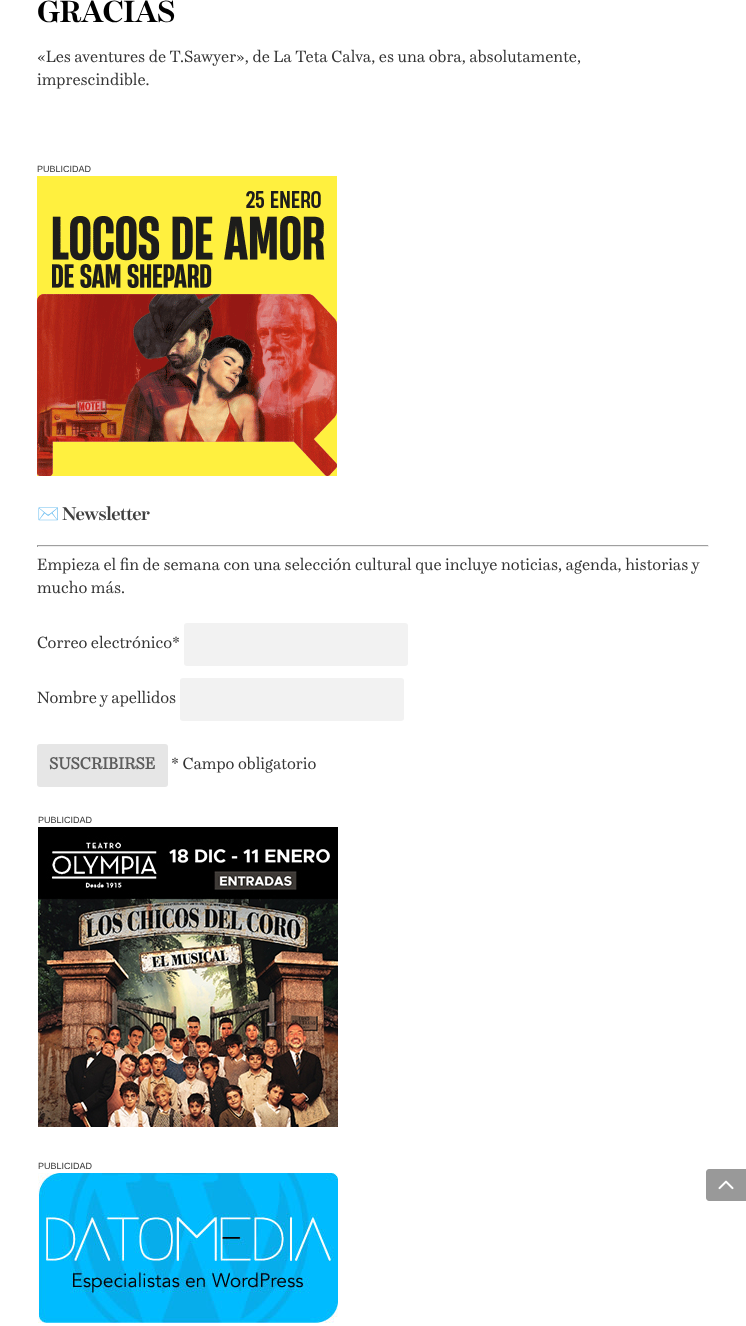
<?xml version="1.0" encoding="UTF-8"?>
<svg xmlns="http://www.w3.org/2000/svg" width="746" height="1326">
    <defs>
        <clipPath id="clip1"><rect x="37" y="504" width="672" height="283" rx="3"/></clipPath>
    </defs>
    <rect width="100%" height="100%" fill="#FFFFFF"/>
    <text x="37" y="22" font-family="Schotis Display" font-size="30" font-weight="700" letter-spacing="-1" fill="#000000">GRACIAS</text>
    <text font-family="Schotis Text" font-size="16" fill="#333333">
        <tspan x="37" y="62">«Les aventures de T.Sawyer», de La Teta Calva, es una obra, absolutamente,</tspan>
        <tspan x="37" y="85">imprescindible.</tspan>
    </text>
    <text x="37" y="172" font-family="Liberation Sans" font-size="9" fill="#333333">PUBLICIDAD</text>
    <image x="37" y="176" width="300" height="300" href="img_01.png"/>
    <g clip-path="url(#clip1)">
        <text x="37" y="520" font-family="Noto Color Emoji" font-size="18" font-weight="700" letter-spacing="-0.75" fill="#404040">✉️</text>
    </g>
    <text x="62" y="520" font-family="Schotis Display" font-size="18" font-weight="700" letter-spacing="-0.75" fill="#404040">Newsletter</text>
    <rect x="37" y="545" width="672" height="1" fill="#9F9F9F"/>
    <rect x="708" y="545" width="1" height="2" fill="#EEEEEE"/>
    <rect x="37" y="546" width="672" height="1" fill="#EEEEEE"/>
    <rect x="37" y="545" width="1" height="2" fill="#9F9F9F"/>
    <text font-family="Schotis Text" font-size="16" fill="#333333">
        <tspan x="37" y="570">Empieza el fin de semana con una selección cultural que incluye noticias, agenda, historias y</tspan>
        <tspan x="37" y="593">mucho más.</tspan>
    </text>
    <text x="37" y="648" font-family="Schotis Text" font-size="16" fill="#333333">Correo electrónico*</text>
    <rect x="184" y="623" width="224" height="43" rx="3" fill="#F2F2F2"/>
    <text x="37" y="703" font-family="Schotis Text" font-size="16" fill="#333333">Nombre y apellidos</text>
    <rect x="180" y="678" width="224" height="43" rx="3" fill="#F2F2F2"/>
    <rect x="37" y="744" width="131" height="43" rx="3" fill="#E6E6E6"/>
    <text x="49" y="769" font-family="Schotis Text" font-size="16" font-weight="700" fill="#5C5C5C">SUSCRIBIRSE</text>
    <text x="171" y="769" font-family="Schotis Text" font-size="16" fill="#333333">* Campo obligatorio</text>
    <text x="38" y="823" font-family="Liberation Sans" font-size="9" fill="#333333">PUBLICIDAD</text>
    <image x="38" y="827" width="300" height="300" href="img_02.png"/>
    <text x="38" y="1169" font-family="Liberation Sans" font-size="9" fill="#333333">PUBLICIDAD</text>
    <image x="38" y="1173" width="300" height="150" href="img_03.png"/>
    <path d="M 709 1169 H 746 V 1201 H 709 C 707.5 1201 706 1199.5 706 1198 V 1172 C 706 1170.5 707.5 1169 709 1169 Z" fill="#999999"/>
    <image x="718" y="1180" width="16" height="10" href="img_04.png"/>
</svg>
